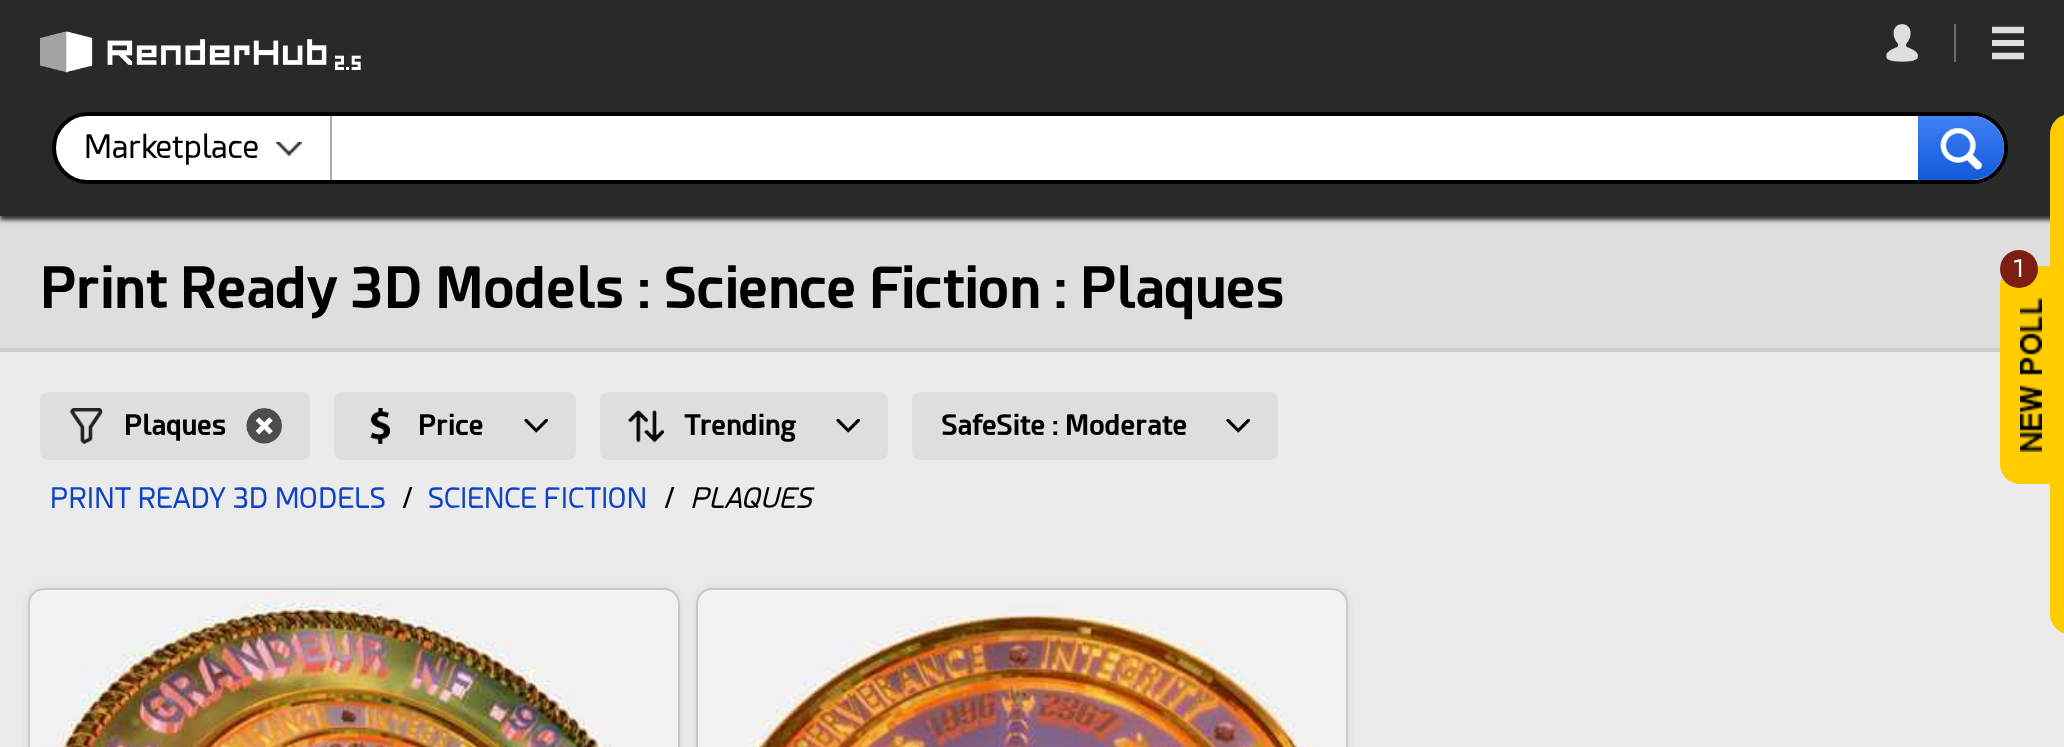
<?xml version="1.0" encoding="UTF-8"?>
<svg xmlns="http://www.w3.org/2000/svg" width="2064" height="747">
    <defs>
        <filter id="blur1" x="-50%" y="-200%" width="200%" height="500%"><feGaussianBlur stdDeviation="2"/></filter>
        <filter id="blur2" x="-50%" y="-200%" width="200%" height="500%"><feGaussianBlur stdDeviation="4"/></filter>
    </defs>
    <rect width="100%" height="100%" fill="#EBEBEB"/>
    <rect x="0" y="216" width="2050" height="132" fill="#DEDEDE"/>
    <rect x="0" y="0" width="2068" height="220" fill="#323436" filter="url(#blur1)"/>
    <rect x="0" y="0" width="2064" height="216" fill="#292929"/>
    <image x="40" y="31" width="321" height="42" href="img_01.png"/>
    <rect x="1954" y="24" width="2" height="38" fill="#6C6C6C"/>
    <image x="1886" y="24" width="32" height="38" href="img_02.png"/>
    <image x="1992" y="26" width="32" height="34" href="img_03.png"/>
    <rect x="54" y="114" width="1952" height="68" rx="34" fill="#FFFFFF" stroke="#000000" stroke-width="4"/>
    <rect x="330" y="116" width="2" height="64" fill="#ABABAB"/>
    <text x="84" y="158" font-family="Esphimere" font-size="32" fill="#000000">Marketplace</text>
    <image x="276" y="142" width="26" height="14" href="img_04.png"/>
    <image x="1918" y="116" width="86" height="64" href="img_05.png"/>
    <rect x="0" y="348" width="2000" height="4" fill="#CDCDCD"/>
    <text x="40" y="308" font-family="Esphimere" font-size="56" font-weight="700" fill="#000000">Print Ready 3D Models : Science Fiction : Plaques</text>
    <rect x="40" y="392" width="270" height="68" rx="8" fill="#DEDEDE"/>
    <image x="69" y="408" width="34" height="36" href="img_06.png"/>
    <text x="124" y="435" font-family="Esphimere" font-size="28" font-weight="700" fill="#000000">Plaques</text>
    <image x="246" y="408" width="36" height="36" href="img_07.png"/>
    <rect x="334" y="392" width="242" height="68" rx="8" fill="#DEDEDE"/>
    <image x="370" y="408" width="20" height="36" href="img_08.png"/>
    <text x="418" y="435" font-family="Esphimere" font-size="28" font-weight="700" fill="#000000">Price</text>
    <image x="524" y="419" width="24" height="14" href="img_09.png"/>
    <rect x="600" y="392" width="288" height="68" rx="8" fill="#DEDEDE"/>
    <image x="628" y="410" width="36" height="33" href="img_10.png"/>
    <text x="684" y="435" font-family="Esphimere" font-size="28" font-weight="700" fill="#000000">Trending</text>
    <image x="836" y="419" width="24" height="14" href="img_11.png"/>
    <rect x="912" y="392" width="366" height="68" rx="8" fill="#DEDEDE"/>
    <text x="941" y="435" font-family="Esphimere" font-size="28" font-weight="700" fill="#000000">SafeSite : Moderate</text>
    <image x="1226" y="419" width="24" height="14" href="img_12.png"/>
    <text x="50" y="508" font-family="Esphimere" font-size="28" fill="#0F43C6">PRINT READY 3D MODELS</text>
    <text x="402" y="508" font-family="Esphimere" font-size="28" fill="#000000">/</text>
    <text x="428" y="508" font-family="Esphimere" font-size="28" fill="#0F43C6">SCIENCE FICTION</text>
    <text x="664" y="508" font-family="Esphimere" font-size="28" fill="#000000">/</text>
    <text x="690" y="508" font-family="Esphimere" font-size="28" font-style="italic" fill="#000000">PLAQUES</text>
    <rect x="28" y="588" width="652" height="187" rx="16" fill="#000000" fill-opacity="0.1" filter="url(#blur2)"/>
    <rect x="29" y="589" width="650" height="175" rx="15" fill="#F2F2F2" stroke="#C8C8C8" stroke-width="2"/>
    <path d="M 46 590 H 662 C 671 590 678 597 678 606 V 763 H 30 V 606 C 30 597 37 590 46 590 Z" fill="#DEDEDE"/>
    <image x="30" y="590" width="648" height="157" href="img_13.png"/>
    <rect x="696" y="588" width="652" height="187" rx="16" fill="#000000" fill-opacity="0.1" filter="url(#blur2)"/>
    <rect x="697" y="589" width="650" height="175" rx="15" fill="#F2F2F2" stroke="#C8C8C8" stroke-width="2"/>
    <path d="M 714 590 H 1330 C 1339 590 1346 597 1346 606 V 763 H 698 V 606 C 698 597 705 590 714 590 Z" fill="#DEDEDE"/>
    <image x="698" y="590" width="648" height="157" href="img_14.png"/>
    <path d="M 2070 114 H 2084 V 634 H 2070 C 2059 634 2050 625 2050 614 V 134 C 2050 123 2059 114 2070 114 Z" fill="#FFCC00"/>
    <path d="M 2020 266 H 2062 V 484 H 2020 C 2009 484 2000 475 2000 464 V 286 C 2000 275 2009 266 2020 266 Z" fill="#FFCC00"/>
    <circle cx="2019" cy="269" r="19" fill="#7D1E11"/>
    <text x="2013" y="277" font-family="Esphimere" font-size="24" fill="#FFFFFF">1</text>
    <image x="2020" y="298" width="22" height="154" href="img_15.png"/>
</svg>
